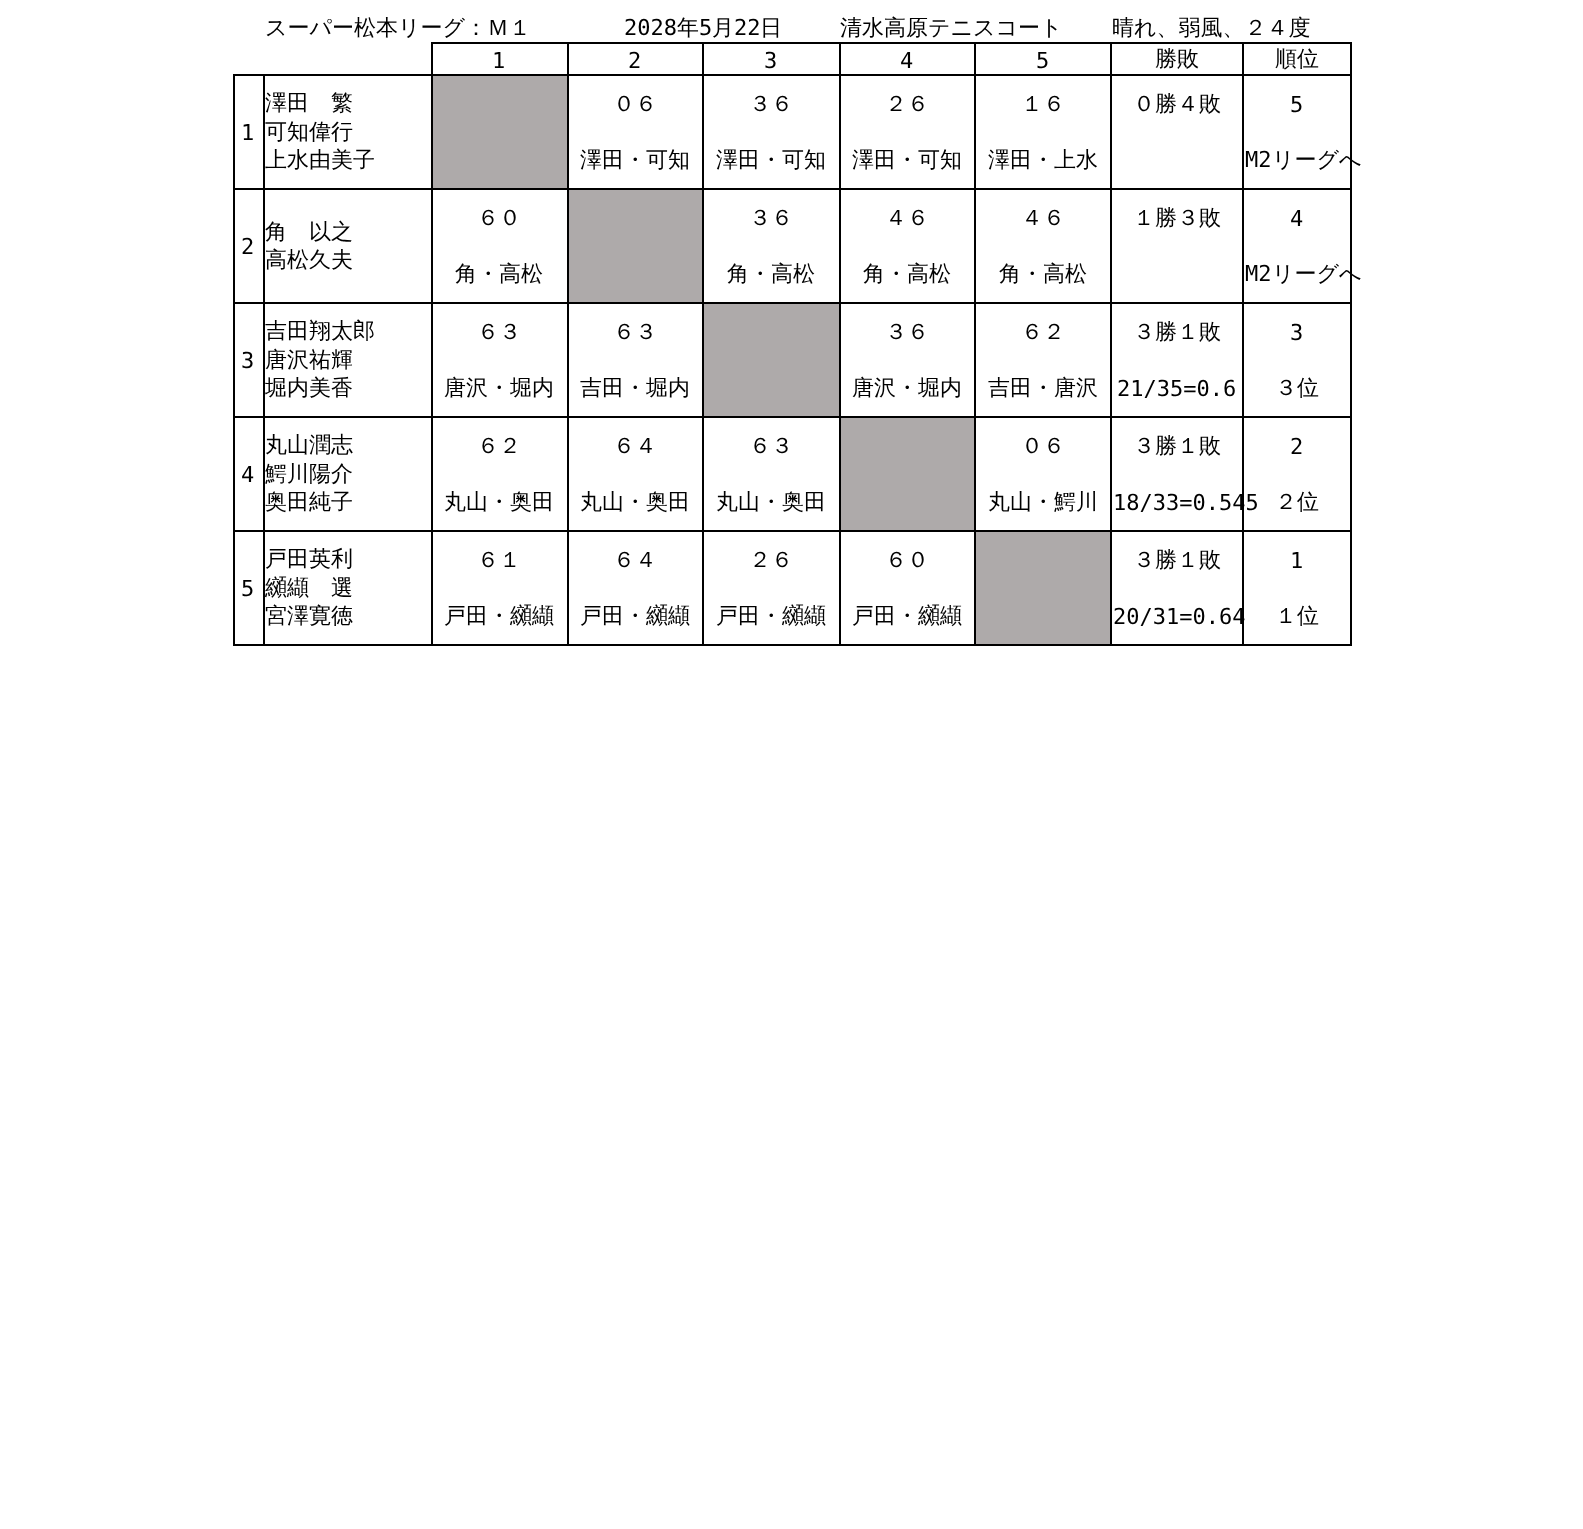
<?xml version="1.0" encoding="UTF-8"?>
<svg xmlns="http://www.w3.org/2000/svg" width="1583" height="1529">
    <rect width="100%" height="100%" fill="#FFFFFF"/>
    <text x="265" y="35" font-family="WenQuanYi Zen Hei" font-size="22" font-weight="500" fill="#000000">スーパー松本リーグ：Ｍ１</text>
    <text x="624" y="35" font-family="DejaVu Sans Mono" font-size="22" fill="#000000">2028</text>
    <text x="677" y="35" font-family="WenQuanYi Zen Hei" font-size="22" font-weight="500" fill="#000000">年</text>
    <text x="699" y="35" font-family="DejaVu Sans Mono" font-size="22" fill="#000000">5</text>
    <text x="712" y="35" font-family="WenQuanYi Zen Hei" font-size="22" font-weight="500" fill="#000000">月</text>
    <text x="734" y="35" font-family="DejaVu Sans Mono" font-size="22" fill="#000000">22</text>
    <text x="760" y="35" font-family="WenQuanYi Zen Hei" font-size="22" font-weight="500" fill="#000000">日</text>
    <text x="840" y="35" font-family="WenQuanYi Zen Hei" font-size="22" font-weight="500" fill="#000000">清水高原テニスコート</text>
    <text x="1112" y="35" font-family="WenQuanYi Zen Hei" font-size="22" font-weight="500" fill="#000000">晴れ、弱風、２４度</text>
    <rect x="431" y="42" width="921" height="2" fill="#000000"/>
    <rect x="431" y="74" width="921" height="2" fill="#000000"/>
    <rect x="1350" y="131" width="2" height="514" fill="#000000"/>
    <rect x="1242" y="644" width="110" height="2" fill="#000000"/>
    <rect x="1242" y="530" width="2" height="115" fill="#000000"/>
    <rect x="1242" y="530" width="110" height="2" fill="#000000"/>
    <rect x="1242" y="416" width="2" height="115" fill="#000000"/>
    <rect x="1242" y="416" width="110" height="2" fill="#000000"/>
    <rect x="1242" y="302" width="2" height="115" fill="#000000"/>
    <rect x="1242" y="302" width="110" height="2" fill="#000000"/>
    <rect x="1242" y="188" width="2" height="115" fill="#000000"/>
    <rect x="1242" y="188" width="110" height="2" fill="#000000"/>
    <rect x="1242" y="131" width="2" height="58" fill="#000000"/>
    <rect x="1110" y="644" width="134" height="2" fill="#000000"/>
    <rect x="1110" y="530" width="2" height="115" fill="#000000"/>
    <rect x="1110" y="530" width="134" height="2" fill="#000000"/>
    <rect x="1110" y="416" width="2" height="115" fill="#000000"/>
    <rect x="1110" y="416" width="134" height="2" fill="#000000"/>
    <rect x="1110" y="302" width="2" height="115" fill="#000000"/>
    <rect x="1110" y="302" width="134" height="2" fill="#000000"/>
    <rect x="1110" y="188" width="2" height="115" fill="#000000"/>
    <rect x="1110" y="188" width="134" height="2" fill="#000000"/>
    <rect x="1110" y="131" width="2" height="58" fill="#000000"/>
    <rect x="839" y="644" width="136" height="2" fill="#000000"/>
    <rect x="974" y="644" width="138" height="2" fill="#000000"/>
    <rect x="974" y="530" width="2" height="115" fill="#000000"/>
    <rect x="974" y="530" width="138" height="2" fill="#000000"/>
    <rect x="974" y="416" width="2" height="115" fill="#000000"/>
    <rect x="974" y="416" width="138" height="2" fill="#000000"/>
    <rect x="974" y="302" width="2" height="115" fill="#000000"/>
    <rect x="974" y="302" width="138" height="2" fill="#000000"/>
    <rect x="974" y="188" width="2" height="115" fill="#000000"/>
    <rect x="974" y="188" width="138" height="2" fill="#000000"/>
    <rect x="974" y="131" width="2" height="58" fill="#000000"/>
    <rect x="839" y="530" width="2" height="115" fill="#000000"/>
    <rect x="702" y="644" width="138" height="2" fill="#000000"/>
    <rect x="702" y="530" width="2" height="115" fill="#000000"/>
    <rect x="702" y="530" width="138" height="2" fill="#000000"/>
    <rect x="839" y="530" width="136" height="2" fill="#000000"/>
    <rect x="839" y="416" width="2" height="115" fill="#000000"/>
    <rect x="839" y="416" width="136" height="2" fill="#000000"/>
    <rect x="839" y="302" width="2" height="115" fill="#000000"/>
    <rect x="839" y="302" width="136" height="2" fill="#000000"/>
    <rect x="839" y="188" width="2" height="115" fill="#000000"/>
    <rect x="839" y="188" width="136" height="2" fill="#000000"/>
    <rect x="839" y="131" width="2" height="58" fill="#000000"/>
    <rect x="702" y="416" width="2" height="115" fill="#000000"/>
    <rect x="567" y="644" width="137" height="2" fill="#000000"/>
    <rect x="567" y="530" width="2" height="115" fill="#000000"/>
    <rect x="567" y="530" width="137" height="2" fill="#000000"/>
    <rect x="567" y="416" width="2" height="115" fill="#000000"/>
    <rect x="567" y="416" width="137" height="2" fill="#000000"/>
    <rect x="702" y="416" width="138" height="2" fill="#000000"/>
    <rect x="702" y="302" width="2" height="115" fill="#000000"/>
    <rect x="702" y="302" width="138" height="2" fill="#000000"/>
    <rect x="702" y="188" width="2" height="115" fill="#000000"/>
    <rect x="702" y="188" width="138" height="2" fill="#000000"/>
    <rect x="702" y="131" width="2" height="58" fill="#000000"/>
    <rect x="567" y="302" width="2" height="115" fill="#000000"/>
    <rect x="431" y="644" width="138" height="2" fill="#000000"/>
    <rect x="431" y="530" width="2" height="115" fill="#000000"/>
    <rect x="431" y="530" width="138" height="2" fill="#000000"/>
    <rect x="431" y="416" width="2" height="115" fill="#000000"/>
    <rect x="431" y="416" width="138" height="2" fill="#000000"/>
    <rect x="431" y="302" width="2" height="115" fill="#000000"/>
    <rect x="431" y="302" width="138" height="2" fill="#000000"/>
    <rect x="567" y="302" width="137" height="2" fill="#000000"/>
    <rect x="567" y="188" width="2" height="115" fill="#000000"/>
    <rect x="567" y="188" width="137" height="2" fill="#000000"/>
    <rect x="567" y="74" width="2" height="115" fill="#000000"/>
    <rect x="567" y="42" width="2" height="33" fill="#000000"/>
    <rect x="431" y="188" width="2" height="115" fill="#000000"/>
    <rect x="431" y="188" width="138" height="2" fill="#000000"/>
    <rect x="431" y="74" width="2" height="115" fill="#000000"/>
    <rect x="263" y="74" width="169" height="2" fill="#000000"/>
    <rect x="431" y="42" width="2" height="33" fill="#000000"/>
    <text x="492" y="68" font-family="DejaVu Sans Mono" font-size="22" fill="#000000">1</text>
    <rect x="702" y="74" width="2" height="58" fill="#000000"/>
    <rect x="702" y="42" width="2" height="33" fill="#000000"/>
    <text x="628" y="68" font-family="DejaVu Sans Mono" font-size="22" fill="#000000">2</text>
    <rect x="839" y="74" width="2" height="58" fill="#000000"/>
    <rect x="839" y="42" width="2" height="33" fill="#000000"/>
    <text x="764" y="68" font-family="DejaVu Sans Mono" font-size="22" fill="#000000">3</text>
    <rect x="974" y="74" width="2" height="58" fill="#000000"/>
    <rect x="974" y="42" width="2" height="33" fill="#000000"/>
    <text x="900" y="68" font-family="DejaVu Sans Mono" font-size="22" fill="#000000">4</text>
    <rect x="1110" y="74" width="2" height="58" fill="#000000"/>
    <rect x="1110" y="42" width="2" height="33" fill="#000000"/>
    <text x="1036" y="68" font-family="DejaVu Sans Mono" font-size="22" fill="#000000">5</text>
    <rect x="1242" y="74" width="2" height="58" fill="#000000"/>
    <rect x="1242" y="42" width="2" height="33" fill="#000000"/>
    <text x="1155" y="66" font-family="WenQuanYi Zen Hei" font-size="22" font-weight="500" fill="#000000">勝敗</text>
    <rect x="1350" y="74" width="2" height="58" fill="#000000"/>
    <rect x="1350" y="42" width="2" height="33" fill="#000000"/>
    <text x="1275" y="66" font-family="WenQuanYi Zen Hei" font-size="22" font-weight="500" fill="#000000">順位</text>
    <rect x="263" y="644" width="169" height="2" fill="#000000"/>
    <rect x="263" y="530" width="2" height="115" fill="#000000"/>
    <rect x="263" y="530" width="169" height="2" fill="#000000"/>
    <rect x="263" y="416" width="2" height="115" fill="#000000"/>
    <rect x="263" y="416" width="169" height="2" fill="#000000"/>
    <rect x="263" y="302" width="2" height="115" fill="#000000"/>
    <rect x="263" y="302" width="169" height="2" fill="#000000"/>
    <rect x="263" y="188" width="2" height="115" fill="#000000"/>
    <rect x="263" y="188" width="169" height="2" fill="#000000"/>
    <rect x="263" y="74" width="2" height="115" fill="#000000"/>
    <text font-family="WenQuanYi Zen Hei" font-size="22" font-weight="500" fill="#000000">
        <tspan x="265" y="110">澤田　繁</tspan>
        <tspan x="265" y="139">可知偉行</tspan>
        <tspan x="265" y="167">上水由美子</tspan>
    </text>
    <rect x="433" y="76" width="134" height="112" fill="#AEAAAA"/>
    <text x="613" y="111" font-family="WenQuanYi Zen Hei" font-size="22" font-weight="500" fill="#000000">０６</text>
    <text x="749" y="111" font-family="WenQuanYi Zen Hei" font-size="22" font-weight="500" fill="#000000">３６</text>
    <text x="885" y="111" font-family="WenQuanYi Zen Hei" font-size="22" font-weight="500" fill="#000000">２６</text>
    <text x="1021" y="111" font-family="WenQuanYi Zen Hei" font-size="22" font-weight="500" fill="#000000">１６</text>
    <text x="1133" y="111" font-family="WenQuanYi Zen Hei" font-size="22" font-weight="500" fill="#000000">０勝４敗</text>
    <text x="1290" y="112" font-family="DejaVu Sans Mono" font-size="22" fill="#000000">5</text>
    <rect x="233" y="74" width="31" height="2" fill="#000000"/>
    <rect x="233" y="644" width="31" height="2" fill="#000000"/>
    <rect x="233" y="530" width="2" height="115" fill="#000000"/>
    <rect x="233" y="530" width="31" height="2" fill="#000000"/>
    <rect x="233" y="416" width="2" height="115" fill="#000000"/>
    <rect x="233" y="416" width="31" height="2" fill="#000000"/>
    <rect x="233" y="302" width="2" height="115" fill="#000000"/>
    <rect x="233" y="302" width="31" height="2" fill="#000000"/>
    <rect x="233" y="188" width="2" height="115" fill="#000000"/>
    <rect x="233" y="188" width="31" height="2" fill="#000000"/>
    <rect x="233" y="74" width="2" height="115" fill="#000000"/>
    <text x="241" y="140" font-family="DejaVu Sans Mono" font-size="22" fill="#000000">1</text>
    <text x="580" y="167" font-family="WenQuanYi Zen Hei" font-size="22" font-weight="500" fill="#000000">澤田・可知</text>
    <text x="716" y="167" font-family="WenQuanYi Zen Hei" font-size="22" font-weight="500" fill="#000000">澤田・可知</text>
    <text x="852" y="167" font-family="WenQuanYi Zen Hei" font-size="22" font-weight="500" fill="#000000">澤田・可知</text>
    <text x="988" y="167" font-family="WenQuanYi Zen Hei" font-size="22" font-weight="500" fill="#000000">澤田・上水</text>
    <text x="1245" y="167" font-family="DejaVu Sans Mono" font-size="22" fill="#000000">M2</text>
    <text x="1272" y="167" font-family="WenQuanYi Zen Hei" font-size="22" font-weight="500" fill="#000000">リーグへ</text>
    <text x="477" y="225" font-family="WenQuanYi Zen Hei" font-size="22" font-weight="500" fill="#000000">６０</text>
    <rect x="569" y="190" width="133" height="112" fill="#AEAAAA"/>
    <text x="749" y="225" font-family="WenQuanYi Zen Hei" font-size="22" font-weight="500" fill="#000000">３６</text>
    <text x="885" y="225" font-family="WenQuanYi Zen Hei" font-size="22" font-weight="500" fill="#000000">４６</text>
    <text x="1021" y="225" font-family="WenQuanYi Zen Hei" font-size="22" font-weight="500" fill="#000000">４６</text>
    <text x="1133" y="225" font-family="WenQuanYi Zen Hei" font-size="22" font-weight="500" fill="#000000">１勝３敗</text>
    <text x="1290" y="226" font-family="DejaVu Sans Mono" font-size="22" fill="#000000">4</text>
    <text x="241" y="254" font-family="DejaVu Sans Mono" font-size="22" fill="#000000">2</text>
    <text font-family="WenQuanYi Zen Hei" font-size="22" font-weight="500" fill="#000000">
        <tspan x="265" y="239">角　以之</tspan>
        <tspan x="265" y="267">高松久夫</tspan>
    </text>
    <text x="455" y="281" font-family="WenQuanYi Zen Hei" font-size="22" font-weight="500" fill="#000000">角・高松</text>
    <text x="727" y="281" font-family="WenQuanYi Zen Hei" font-size="22" font-weight="500" fill="#000000">角・高松</text>
    <text x="863" y="281" font-family="WenQuanYi Zen Hei" font-size="22" font-weight="500" fill="#000000">角・高松</text>
    <text x="999" y="281" font-family="WenQuanYi Zen Hei" font-size="22" font-weight="500" fill="#000000">角・高松</text>
    <text x="1245" y="281" font-family="DejaVu Sans Mono" font-size="22" fill="#000000">M2</text>
    <text x="1272" y="281" font-family="WenQuanYi Zen Hei" font-size="22" font-weight="500" fill="#000000">リーグへ</text>
    <text font-family="WenQuanYi Zen Hei" font-size="22" font-weight="500" fill="#000000">
        <tspan x="265" y="338">吉田翔太郎</tspan>
        <tspan x="265" y="367">唐沢祐輝</tspan>
        <tspan x="265" y="395">堀内美香</tspan>
    </text>
    <text x="477" y="339" font-family="WenQuanYi Zen Hei" font-size="22" font-weight="500" fill="#000000">６３</text>
    <text x="613" y="339" font-family="WenQuanYi Zen Hei" font-size="22" font-weight="500" fill="#000000">６３</text>
    <rect x="704" y="304" width="135" height="112" fill="#AEAAAA"/>
    <text x="885" y="339" font-family="WenQuanYi Zen Hei" font-size="22" font-weight="500" fill="#000000">３６</text>
    <text x="1021" y="339" font-family="WenQuanYi Zen Hei" font-size="22" font-weight="500" fill="#000000">６２</text>
    <text x="1133" y="339" font-family="WenQuanYi Zen Hei" font-size="22" font-weight="500" fill="#000000">３勝１敗</text>
    <text x="1290" y="340" font-family="DejaVu Sans Mono" font-size="22" fill="#000000">3</text>
    <text x="241" y="368" font-family="DejaVu Sans Mono" font-size="22" fill="#000000">3</text>
    <text x="444" y="395" font-family="WenQuanYi Zen Hei" font-size="22" font-weight="500" fill="#000000">唐沢・堀内</text>
    <text x="580" y="395" font-family="WenQuanYi Zen Hei" font-size="22" font-weight="500" fill="#000000">吉田・堀内</text>
    <text x="852" y="395" font-family="WenQuanYi Zen Hei" font-size="22" font-weight="500" fill="#000000">唐沢・堀内</text>
    <text x="988" y="395" font-family="WenQuanYi Zen Hei" font-size="22" font-weight="500" fill="#000000">吉田・唐沢</text>
    <text x="1117" y="396" font-family="DejaVu Sans Mono" font-size="22" fill="#000000">21/35=0.6</text>
    <text x="1275" y="395" font-family="WenQuanYi Zen Hei" font-size="22" font-weight="500" fill="#000000">３位</text>
    <text font-family="WenQuanYi Zen Hei" font-size="22" font-weight="500" fill="#000000">
        <tspan x="265" y="452">丸山潤志</tspan>
        <tspan x="265" y="481">鰐川陽介</tspan>
        <tspan x="265" y="509">奥田純子</tspan>
    </text>
    <text x="477" y="453" font-family="WenQuanYi Zen Hei" font-size="22" font-weight="500" fill="#000000">６２</text>
    <text x="613" y="453" font-family="WenQuanYi Zen Hei" font-size="22" font-weight="500" fill="#000000">６４</text>
    <text x="749" y="453" font-family="WenQuanYi Zen Hei" font-size="22" font-weight="500" fill="#000000">６３</text>
    <rect x="841" y="418" width="133" height="112" fill="#AEAAAA"/>
    <text x="1021" y="453" font-family="WenQuanYi Zen Hei" font-size="22" font-weight="500" fill="#000000">０６</text>
    <text x="1133" y="453" font-family="WenQuanYi Zen Hei" font-size="22" font-weight="500" fill="#000000">３勝１敗</text>
    <text x="1290" y="454" font-family="DejaVu Sans Mono" font-size="22" fill="#000000">2</text>
    <text x="241" y="482" font-family="DejaVu Sans Mono" font-size="22" fill="#000000">4</text>
    <text x="444" y="509" font-family="WenQuanYi Zen Hei" font-size="22" font-weight="500" fill="#000000">丸山・奥田</text>
    <text x="580" y="509" font-family="WenQuanYi Zen Hei" font-size="22" font-weight="500" fill="#000000">丸山・奥田</text>
    <text x="716" y="509" font-family="WenQuanYi Zen Hei" font-size="22" font-weight="500" fill="#000000">丸山・奥田</text>
    <text x="988" y="509" font-family="WenQuanYi Zen Hei" font-size="22" font-weight="500" fill="#000000">丸山・鰐川</text>
    <text x="1113" y="510" font-family="DejaVu Sans Mono" font-size="22" fill="#000000">18/33=0.545</text>
    <text x="1275" y="509" font-family="WenQuanYi Zen Hei" font-size="22" font-weight="500" fill="#000000">２位</text>
    <text font-family="WenQuanYi Zen Hei" font-size="22" font-weight="500" fill="#000000">
        <tspan x="265" y="566">戸田英利</tspan>
        <tspan x="265" y="595">纐纈　選</tspan>
        <tspan x="265" y="623">宮澤寛徳</tspan>
    </text>
    <text x="477" y="567" font-family="WenQuanYi Zen Hei" font-size="22" font-weight="500" fill="#000000">６１</text>
    <text x="613" y="567" font-family="WenQuanYi Zen Hei" font-size="22" font-weight="500" fill="#000000">６４</text>
    <text x="749" y="567" font-family="WenQuanYi Zen Hei" font-size="22" font-weight="500" fill="#000000">２６</text>
    <text x="885" y="567" font-family="WenQuanYi Zen Hei" font-size="22" font-weight="500" fill="#000000">６０</text>
    <rect x="976" y="532" width="134" height="112" fill="#AEAAAA"/>
    <text x="1133" y="567" font-family="WenQuanYi Zen Hei" font-size="22" font-weight="500" fill="#000000">３勝１敗</text>
    <text x="1290" y="568" font-family="DejaVu Sans Mono" font-size="22" fill="#000000">1</text>
    <text x="241" y="596" font-family="DejaVu Sans Mono" font-size="22" fill="#000000">5</text>
    <text x="444" y="623" font-family="WenQuanYi Zen Hei" font-size="22" font-weight="500" fill="#000000">戸田・纐纈</text>
    <text x="580" y="623" font-family="WenQuanYi Zen Hei" font-size="22" font-weight="500" fill="#000000">戸田・纐纈</text>
    <text x="716" y="623" font-family="WenQuanYi Zen Hei" font-size="22" font-weight="500" fill="#000000">戸田・纐纈</text>
    <text x="852" y="623" font-family="WenQuanYi Zen Hei" font-size="22" font-weight="500" fill="#000000">戸田・纐纈</text>
    <text x="1113" y="624" font-family="DejaVu Sans Mono" font-size="22" fill="#000000">20/31=0.64</text>
    <text x="1275" y="623" font-family="WenQuanYi Zen Hei" font-size="22" font-weight="500" fill="#000000">１位</text>
</svg>
